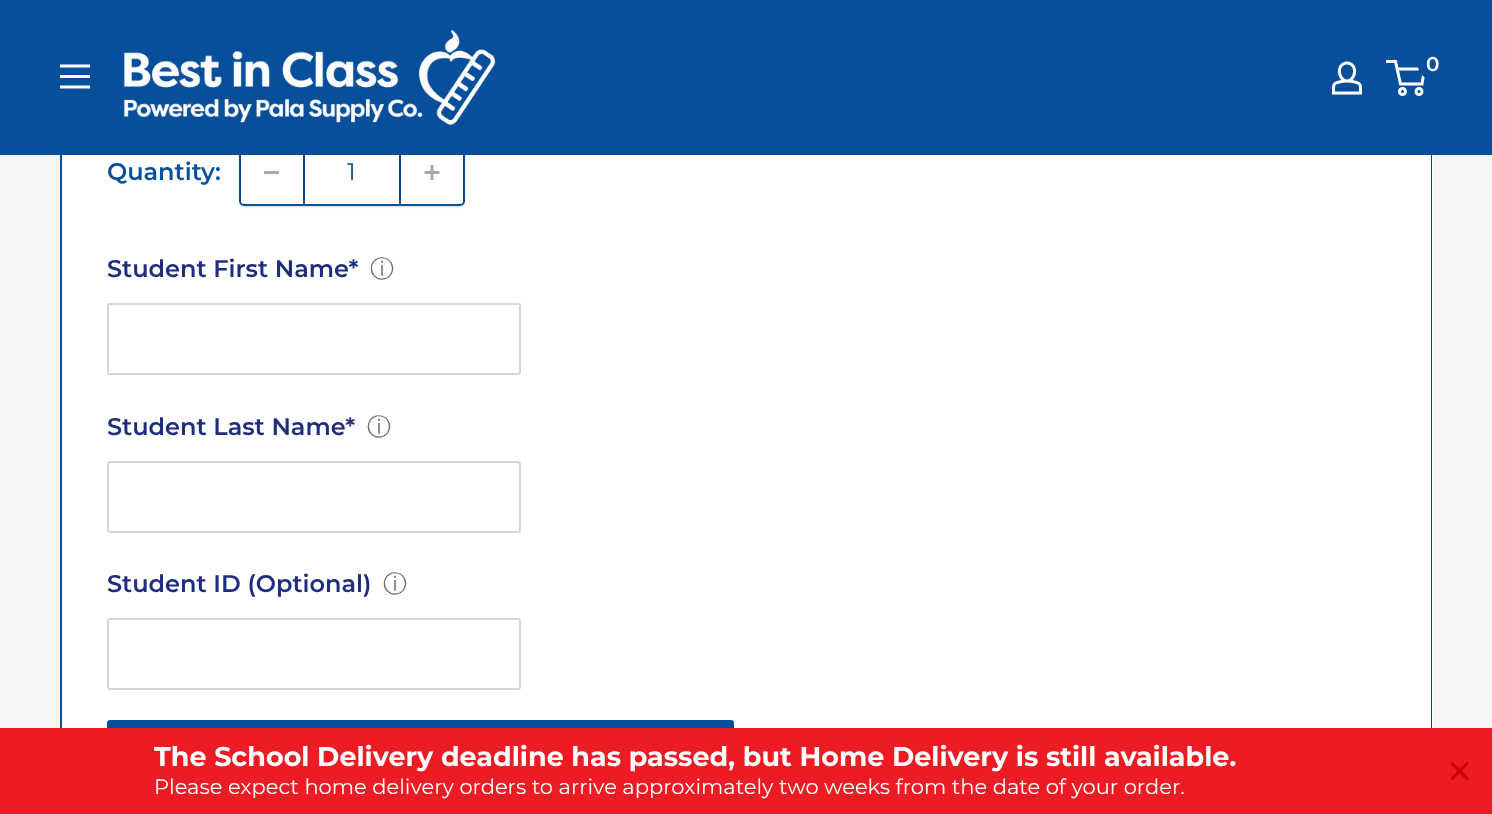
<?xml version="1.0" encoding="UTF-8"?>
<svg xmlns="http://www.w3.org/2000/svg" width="1492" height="814">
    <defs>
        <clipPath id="clip1"><path d="M 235 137 H 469 V 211 H 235 Z M 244 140 H 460 C 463 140 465 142 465 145 V 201 C 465 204 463 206 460 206 H 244 C 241 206 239 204 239 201 V 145 C 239 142 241 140 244 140 Z" clip-rule="evenodd"/></clipPath>
        <filter id="blur1" x="-50%" y="-200%" width="200%" height="500%"><feGaussianBlur stdDeviation="1"/></filter>
    </defs>
    <rect width="100%" height="100%" fill="#F3F5F6"/>
    <rect x="62" y="155" width="1371" height="573" fill="#FFFFFF"/>
    <path d="M 64 -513 H 1428 C 1430 -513 1432 -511 1432 -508 V 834 C 1432 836 1430 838 1428 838 H 64 C 62 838 60 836 60 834 V -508 C 60 -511 62 -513 64 -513 Z M 64 -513 H 1428 C 1430 -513 1431 -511 1431 -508 V 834 C 1431 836 1430 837 1428 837 H 64 C 63 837 62 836 62 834 V -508 C 62 -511 63 -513 64 -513 Z" fill="#074F9A" fill-rule="evenodd"/>
    <g clip-path="url(#clip1)">
        <rect x="239" y="141" width="226" height="66" rx="5" fill="#074F9A" fill-opacity="0.2" filter="url(#blur1)"/>
    </g>
    <rect x="240" y="141" width="224" height="64" rx="4" fill="none" stroke="#074F9A" stroke-width="2"/>
    <rect x="0" y="0" width="1492" height="155" fill="#074F9A"/>
    <image x="60" y="64" width="30" height="25" href="img_01.png"/>
    <image x="123" y="30" width="372" height="95" href="img_02.png"/>
    <image x="1332" y="61" width="30" height="34" href="img_03.png"/>
    <circle cx="1402.5" cy="91.5" r="3" fill="none" stroke="#FFFFFF" stroke-width="3"/>
    <circle cx="1419" cy="91.5" r="3" fill="none" stroke="#FFFFFF" stroke-width="3"/>
    <path d="M 1397 69 H 1424.5 L 1422 84 H 1400.5 L 1395.5 61.5 H 1386" fill="none" stroke="#FFFFFF" stroke-width="3"/>
    <rect x="1418" y="48" width="30" height="32" rx="15" fill="#074F9A"/>
    <text x="1426" y="71" font-family="Montserrat" font-size="20" font-weight="600" fill="#FFFFFF">0</text>
    <text x="107" y="180" font-family="Montserrat" font-size="24" font-weight="600" fill="#074F9A">Quantity:</text>
    <rect x="264" y="171" width="15" height="3" fill="#A4AAAF"/>
    <rect x="399" y="155" width="2" height="49" fill="#074F9A"/>
    <rect x="303" y="155" width="2" height="49" fill="#074F9A"/>
    <text x="347" y="180" font-family="Montserrat" font-size="24" fill="#074F9A">1</text>
    <image x="424" y="165" width="16" height="15" href="img_04.png"/>
    <text x="107" y="277" font-family="Montserrat" font-size="24" font-weight="600" fill="#1E2D7D">Student First Name*</text>
    <text x="370" y="277" font-family="WenQuanYi Zen Hei" font-size="24" font-weight="500" fill="#677279">ⓘ</text>
    <rect x="108" y="304" width="412" height="70" rx="2" fill="none" stroke="#D4D6D8" stroke-width="2"/>
    <text x="107" y="435" font-family="Montserrat" font-size="24" font-weight="600" fill="#1E2D7D">Student Last Name*</text>
    <text x="367" y="435" font-family="WenQuanYi Zen Hei" font-size="24" font-weight="500" fill="#677279">ⓘ</text>
    <rect x="108" y="462" width="412" height="70" rx="2" fill="none" stroke="#D4D6D8" stroke-width="2"/>
    <text x="107" y="592" font-family="Montserrat" font-size="24" font-weight="600" fill="#1E2D7D">Student ID (Optional)</text>
    <text x="383" y="592" font-family="WenQuanYi Zen Hei" font-size="24" font-weight="500" fill="#677279">ⓘ</text>
    <rect x="108" y="619" width="412" height="70" rx="2" fill="none" stroke="#D4D6D8" stroke-width="2"/>
    <rect x="107" y="720" width="627" height="72" rx="3" fill="#074F9A"/>
    <rect x="0" y="728" width="1492" height="86" fill="#ED1C24"/>
    <text x="154" y="766" font-family="Montserrat" font-size="27" font-weight="700" fill="#FFFFFF">The School Delivery deadline has passed, but Home Delivery is still available.</text>
    <text x="154" y="794" font-family="Montserrat" font-size="21" fill="#FFFFFF">Please expect home delivery orders to arrive approximately two weeks from the date of your order.</text>
    <image x="1451" y="762" width="18" height="18" href="img_05.png"/>
</svg>
